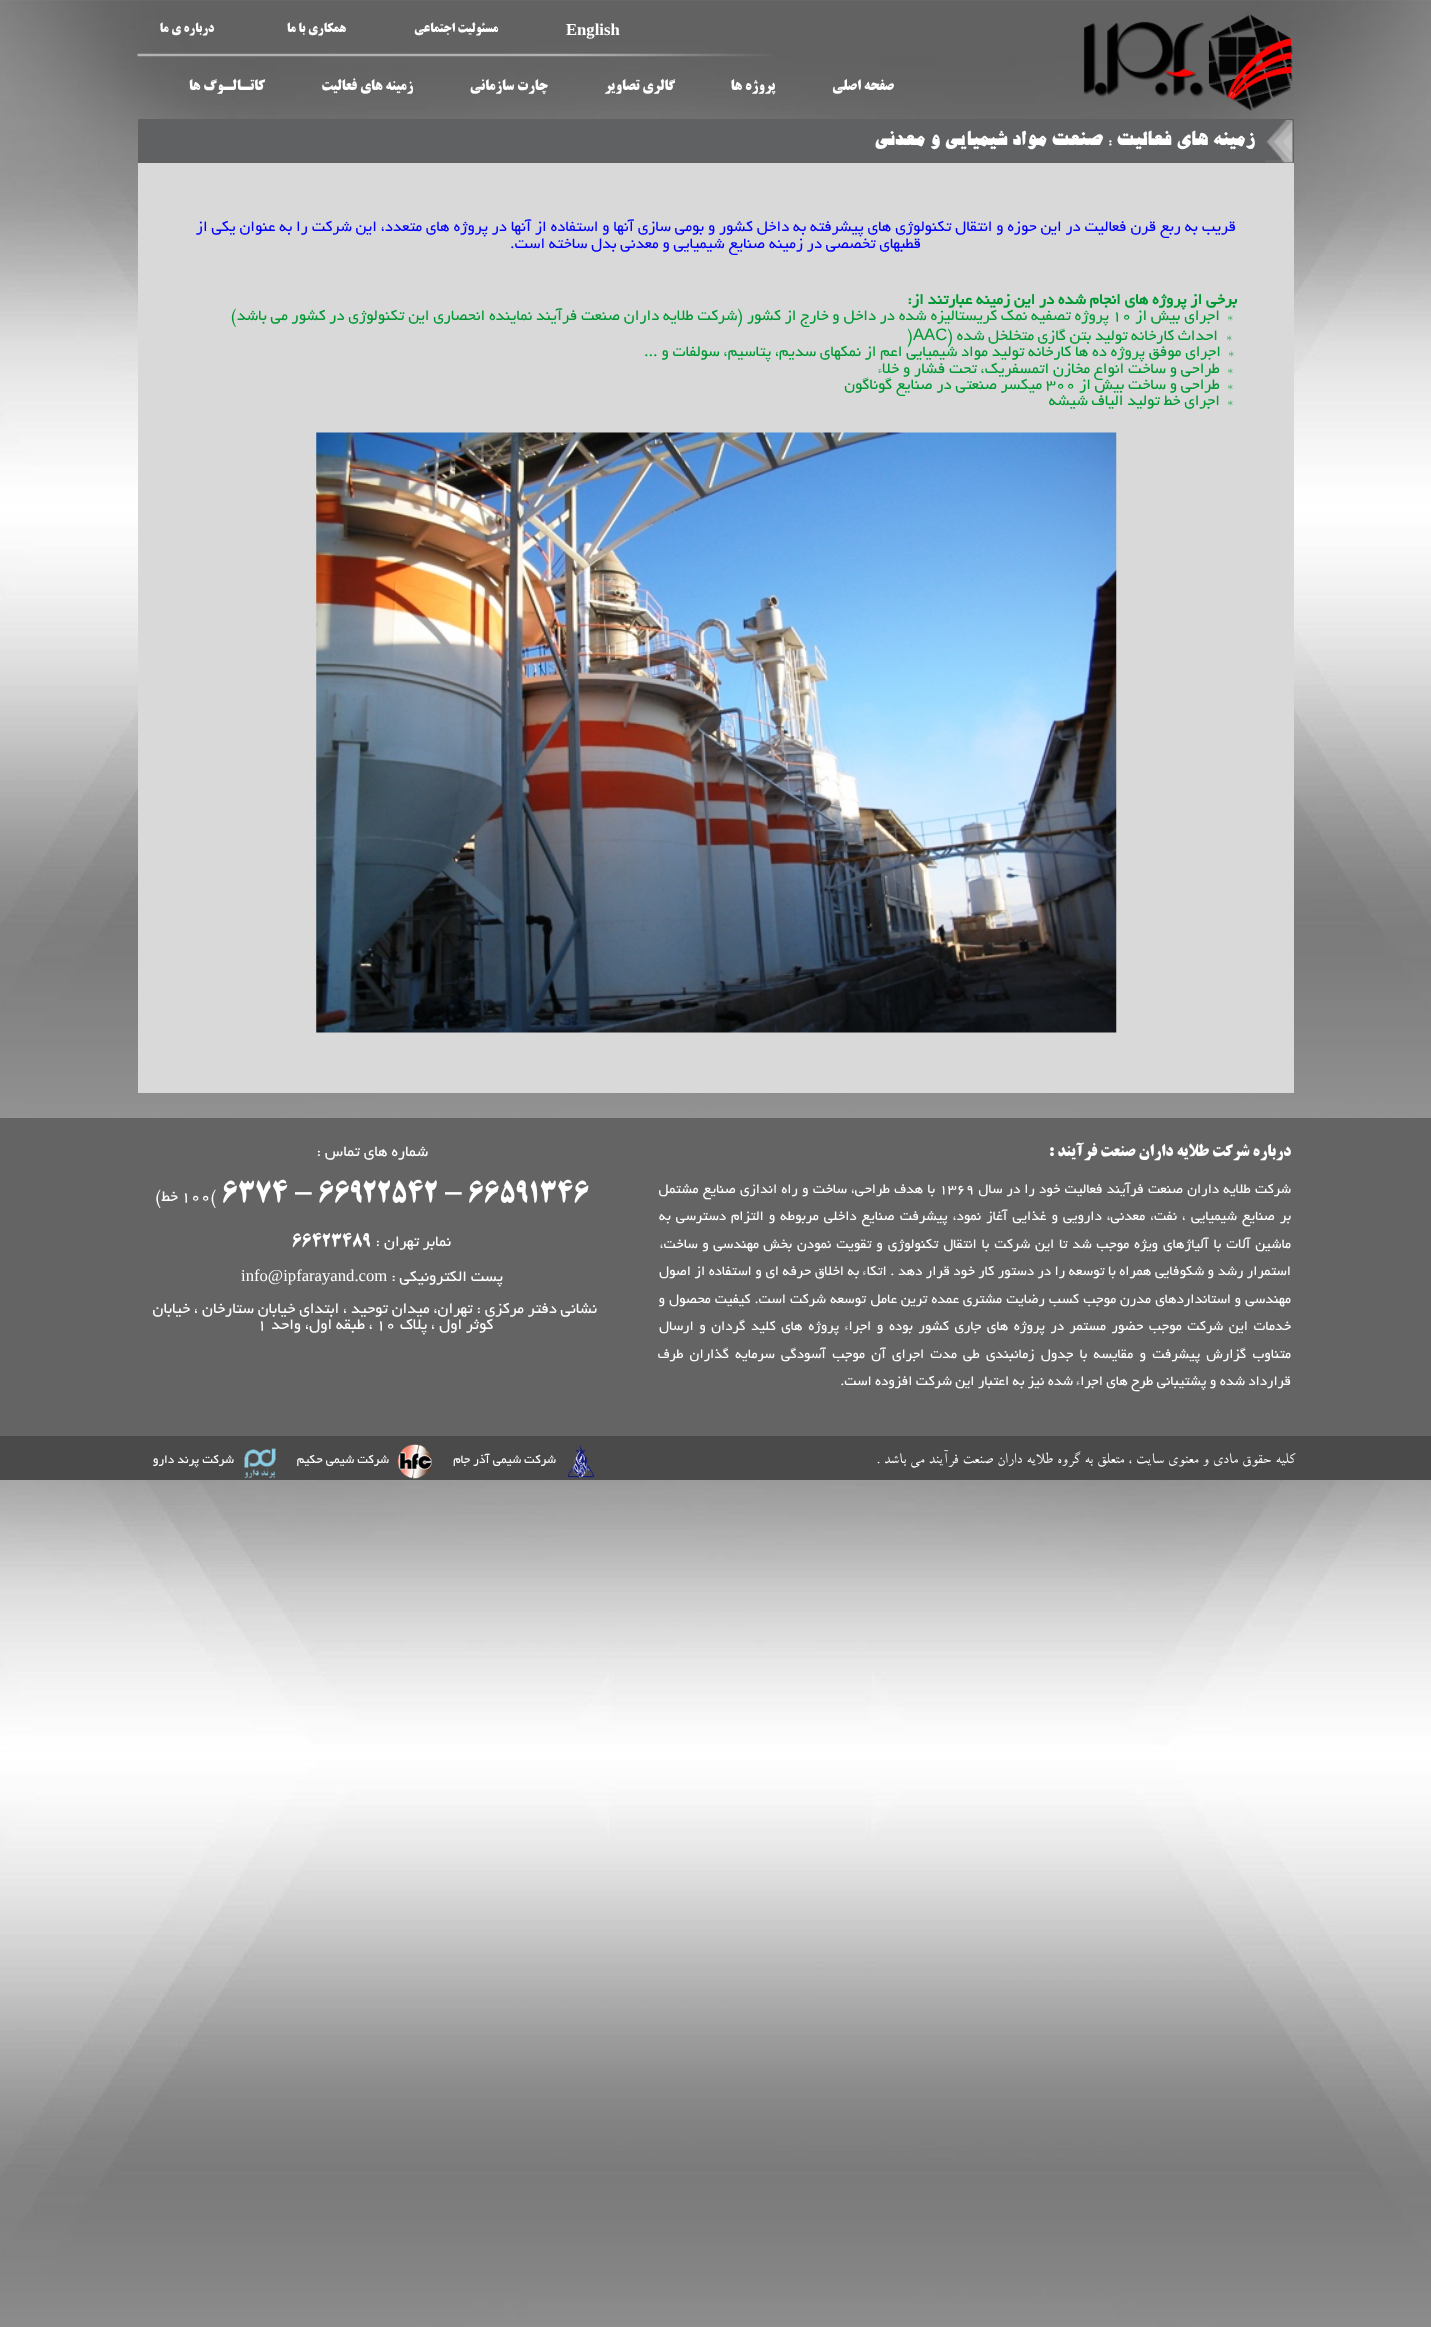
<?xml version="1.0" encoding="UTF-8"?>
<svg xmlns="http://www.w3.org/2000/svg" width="1431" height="2327">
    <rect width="100%" height="100%" fill="#FFFFFF"/>
    <image x="0" y="0" width="1431" height="2327" href="img_01.png"/>
    <image x="1208" y="14" width="85" height="97" href="img_02.png"/>
    <image x="1083" y="21" width="122" height="76" href="img_03.png"/>
    <text x="566" y="35" font-family="Liberation Serif" font-size="16.67" font-weight="700" fill="#FFFFFF">English</text>
    <text x="498" y="32" font-family="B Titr" font-size="13.25" font-weight="700" direction="rtl" fill="#FFFFFF">مسئولیت اجتماعی</text>
    <text x="346" y="32" font-family="B Titr" font-size="13.25" font-weight="700" direction="rtl" fill="#FFFFFF">همکاری با ما</text>
    <text x="214" y="32" font-family="B Titr" font-size="13.25" font-weight="700" direction="rtl" fill="#FFFFFF">درباره ی ما</text>
    <image x="137" y="53" width="636" height="4" href="img_04.png"/>
    <text x="894" y="90" font-family="B Titr" font-size="15" font-weight="700" direction="rtl" fill="#FFFFFF">صفحه اصلی</text>
    <text x="775" y="90" font-family="B Titr" font-size="15" font-weight="700" direction="rtl" fill="#FFFFFF">پروژه ها</text>
    <text x="675" y="90" font-family="B Titr" font-size="15" font-weight="700" direction="rtl" fill="#FFFFFF">گالری تصاویر</text>
    <text x="548" y="90" font-family="B Titr" font-size="15" font-weight="700" direction="rtl" fill="#FFFFFF">چارت سازمانی</text>
    <text x="413" y="90" font-family="B Titr" font-size="15" font-weight="700" direction="rtl" fill="#FFFFFF">زمینه های فعالیت</text>
    <text x="265" y="90" font-family="B Titr" font-size="15" font-weight="700" direction="rtl" fill="#FFFFFF">کاتـالـوگ ها</text>
    <rect x="138" y="120" width="1155" height="43" fill="#606163"/>
    <image x="1265" y="120" width="28" height="43" href="img_05.png"/>
    <rect x="138" y="119" width="1156" height="1" fill="#606163"/>
    <rect x="1293" y="119" width="1" height="45" fill="#606163"/>
    <text x="1255" y="145" font-family="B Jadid" font-size="20" font-weight="700" direction="rtl" fill="#FFFFFF">زمینه های فعالیت : صنعت مواد شیمیایی و معدنی</text>
    <rect x="138" y="163" width="1156" height="930" fill="#D9D9D9"/>
    <text x="1236" y="231" font-family="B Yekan" font-size="16.67" direction="rtl" fill="#0000FF">قریب به ربع قرن فعالیت در این حوزه و انتقال تکنولوژی های پیشرفته به داخل کشور و بومی سازی آنها و استفاده از آنها در پروژه های متعدد، این شرکت را به عنوان یکی از</text>
    <text x="921" y="248" font-family="B Yekan" font-size="16.67" direction="rtl" fill="#0000FF">قطبهای تخصصی در زمینه صنایع شیمیایی و معدنی بدل ساخته است.</text>
    <text x="1237" y="304" font-family="B Yekan" font-size="16.67" font-weight="700" direction="rtl" fill="#009933">برخی از پروژه های انجام شده در این زمینه عبارتند از:</text>
    <text x="1233" y="320" font-family="B Yekan" font-size="16.67" direction="rtl" fill="#009933" xml:space="preserve">*  اجرای بیش از</text>
    <text x="1112" y="320" font-family="B Yekan" font-size="16.67" fill="#009933">10</text>
    <text x="1109" y="320" font-family="B Yekan" font-size="16.67" direction="rtl" fill="#009933">پروژه تصفیه نمک کریستالیزه شده در داخل و خارج از کشور (شرکت طلایه داران صنعت فرآیند نماینده انحصاری این تکنولوژی در کشور می باشد)</text>
    <text x="1232" y="340" font-family="B Yekan" font-size="16.67" direction="rtl" fill="#009933">*</text>
    <text x="1218" y="340" word-spacing="-0.25" font-family="B Yekan" font-size="16.67" direction="rtl" fill="#009933">احداث کارخانه تولید بتن گازی متخلخل شده (</text>
    <text x="913" y="340" font-family="Liberation Sans" font-size="16.67" fill="#009933">AAC</text>
    <text x="907" y="340" font-family="B Yekan" font-size="16.67" fill="#009933">)</text>
    <text x="1234" y="356" font-family="B Yekan" font-size="16.67" direction="rtl" fill="#009933" xml:space="preserve">*  اجرای موفق پروژه ده ها کارخانه تولید مواد شیمیایی اعم از نمکهای سدیم، پتاسیم، سولفات و ...</text>
    <text font-family="B Yekan" font-size="16.67" direction="rtl" fill="#009933" xml:space="preserve"><tspan x="1233" y="373">*  طراحی و ساخت انواع مخازن اتمسفریک، تحت فشار و خلاء</tspan><tspan x="1233" y="389">*  طراحی و ساخت بیش از</tspan></text>
    <text x="1046" y="389" font-family="B Yekan" font-size="16.67" fill="#009933">300</text>
    <text x="1042" y="389" font-family="B Yekan" font-size="16.67" direction="rtl" fill="#009933">میکسر صنعتی در صنایع گوناگون</text>
    <text x="1233" y="405" font-family="B Yekan" font-size="16.67" direction="rtl" fill="#009933" xml:space="preserve">*  اجرای خط تولید الیاف شیشه</text>
    <image x="316" y="432" width="801" height="601" href="img_06.png"/>
    <rect x="0" y="1118" width="1431" height="318" fill="#646464"/>
    <text x="1291" y="1156" font-family="B Titr" font-size="16.67" font-weight="700" direction="rtl" fill="#FFFFFF">درباره شرکت طلایه داران صنعت فرآیند :</text>
    <text x="1291" y="1193" word-spacing="0.75" font-family="B Yekan" font-size="15" direction="rtl" fill="#FFFFFF">شركت طلايه داران صنعت فرآيند فعاليت خود را در سال</text>
    <text x="939" y="1193" font-family="B Yekan" font-size="15" fill="#FFFFFF">1369</text>
    <text x="935" y="1193" word-spacing="0.75" font-family="B Yekan" font-size="15" direction="rtl" fill="#FFFFFF">با هدف طراحي، ساخت و راه اندازي صنايع مشتمل</text>
    <text font-family="B Yekan" font-size="15" direction="rtl" fill="#FFFFFF">
        <tspan x="1291" y="1220" word-spacing="1.6">بر صنايع شيميايي ، نفت، معدني، دارويي و غذايي آغاز نمود، پيشرفت صنايع داخلي مربوطه و التزام دسترسي به</tspan>
        <tspan x="1291" y="1248" word-spacing="1.4">ماشين آلات با آلياژهاي ويژه موجب شد تا اين شركت با انتقال تكنولوژي و تقويت نمودن بخش</tspan>
    </text>
    <text x="759" y="1248" word-spacing="1" font-family="B Yekan" font-size="15" direction="rtl" fill="#FFFFFF">مهندسي و ساخت،</text>
    <text font-family="B Yekan" font-size="15" direction="rtl" fill="#FFFFFF">
        <tspan x="1291" y="1275" word-spacing="0.1">استمرار رشد و شكوفايي همراه با توسعه را در دستور كار خود قرار دهد . اتكاء به اخلاق حرفه اي و استفاده از اصول</tspan>
        <tspan x="1291" y="1303">مهندسي</tspan>
    </text>
    <text x="1241" y="1303" font-family="B Yekan" font-size="15" direction="rtl" fill="#FFFFFF">و</text>
    <text x="1231" y="1303" font-family="B Yekan" font-size="15" direction="rtl" fill="#FFFFFF">استانداردهاي</text>
    <text x="1151" y="1303" word-spacing="0.5" font-family="B Yekan" font-size="15" direction="rtl" fill="#FFFFFF">مدرن موجب</text>
    <text x="1079" y="1303" word-spacing="0.5" font-family="B Yekan" font-size="15" direction="rtl" fill="#FFFFFF">كسب رضايت</text>
    <text x="1002" y="1303" font-family="B Yekan" font-size="15" direction="rtl" fill="#FFFFFF">مشتري</text>
    <text x="959" y="1303" word-spacing="0.5" font-family="B Yekan" font-size="15" direction="rtl" fill="#FFFFFF">عمده ترين</text>
    <text x="897" y="1303" font-family="B Yekan" font-size="15" direction="rtl" fill="#FFFFFF">عامل</text>
    <text x="866" y="1303" font-family="B Yekan" font-size="15" direction="rtl" fill="#FFFFFF">توسعه</text>
    <text x="826" y="1303" word-spacing="0.5" font-family="B Yekan" font-size="15" direction="rtl" fill="#FFFFFF">شركت است. كيفيت محصول و</text>
    <text font-family="B Yekan" font-size="15" direction="rtl" fill="#FFFFFF">
        <tspan x="1291" y="1330" word-spacing="2.1">خدمات اين شركت موجب حضور مستمر در پروژه هاي جاري كشور بوده و اجراء پروژه هاي كليد گردان و ارسال</tspan>
        <tspan x="1291" y="1358" word-spacing="2.75">متناوب گزارش پيشرفت و مقايسه با جدول زمانبندي طي مدت اجراي آن موجب آسودگي سرمايه گذاران طرف</tspan>
        <tspan x="1291" y="1385">قرارداد شده و پشتيباني طرح هاي اجراء شده نيز به اعتبار اين شركت افزوده است.</tspan>
    </text>
    <text x="428" y="1156" font-family="B Yekan" font-size="16.67" direction="rtl" fill="#FFFFFF">شماره های تماس :</text>
    <text x="222" y="1201" font-family="B Titr" font-size="26.7" font-weight="700" fill="#FFFFFF">6374 - 66922542 - 66591346</text>
    <text x="181" y="1201" font-family="B Yekan" font-size="16.67" fill="#FFFFFF">100(</text>
    <text x="178" y="1201" font-family="B Yekan" font-size="16.67" direction="rtl" fill="#FFFFFF">خط)</text>
    <text x="451" y="1246" font-family="B Yekan" font-size="16.67" direction="rtl" fill="#FFFFFF">نمابر تهران :</text>
    <text x="292" y="1246" font-family="B Titr" font-size="16.67" font-weight="700" fill="#FFFFFF">66423489</text>
    <text x="503" y="1281" font-family="B Yekan" font-size="16.67" direction="rtl" fill="#FFFFFF">پست الکترونیکی :</text>
    <text x="241" y="1281" font-family="Liberation Serif" font-size="16.67" fill="#FFFFFF">info@ipfarayand.com</text>
    <text x="597" y="1313" font-family="B Yekan" font-size="16.67" direction="rtl" fill="#FFFFFF">نشانی دفتر مرکزی : تهران، ميدان توحيد ، ابتدای خيابان ستارخان ، خيابان</text>
    <text x="493" y="1329" font-family="B Yekan" font-size="16.67" direction="rtl" fill="#FFFFFF">کوثر اول ، پلاک</text>
    <text x="376" y="1329" font-family="B Yekan" font-size="16.67" fill="#FFFFFF">10</text>
    <text x="373" y="1329" font-family="B Yekan" font-size="16.67" direction="rtl" fill="#FFFFFF">، طبقه اول، واحد</text>
    <text x="257" y="1329" font-family="B Yekan" font-size="16.67" fill="#FFFFFF">1</text>
    <rect x="0" y="1436" width="1431" height="44" fill="#4A4A4A"/>
    <text x="1294" y="1463" font-family="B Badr" font-size="16.67" direction="rtl" fill="#FFFFFF">کلیه حقوق مادی و معنوی سایت ، متعلق به گروه طلایه داران صنعت فرآیند می باشد .</text>
    <image x="567" y="1445" width="28" height="33" href="img_07.png"/>
    <text x="556" y="1463" font-family="B Yekan" font-size="13.25" direction="rtl" fill="#FFFFFF">شرکت شیمی آذر جام</text>
    <image x="397" y="1444" width="35" height="35" href="img_08.png"/>
    <text x="389" y="1463" font-family="B Yekan" font-size="13.25" direction="rtl" fill="#FFFFFF">شرکت شیمی حکیم</text>
    <image x="244" y="1448" width="32" height="31" href="img_09.png"/>
    <text x="234" y="1463" font-family="B Yekan" font-size="13.25" direction="rtl" fill="#FFFFFF">شرکت پرند دارو</text>
</svg>
